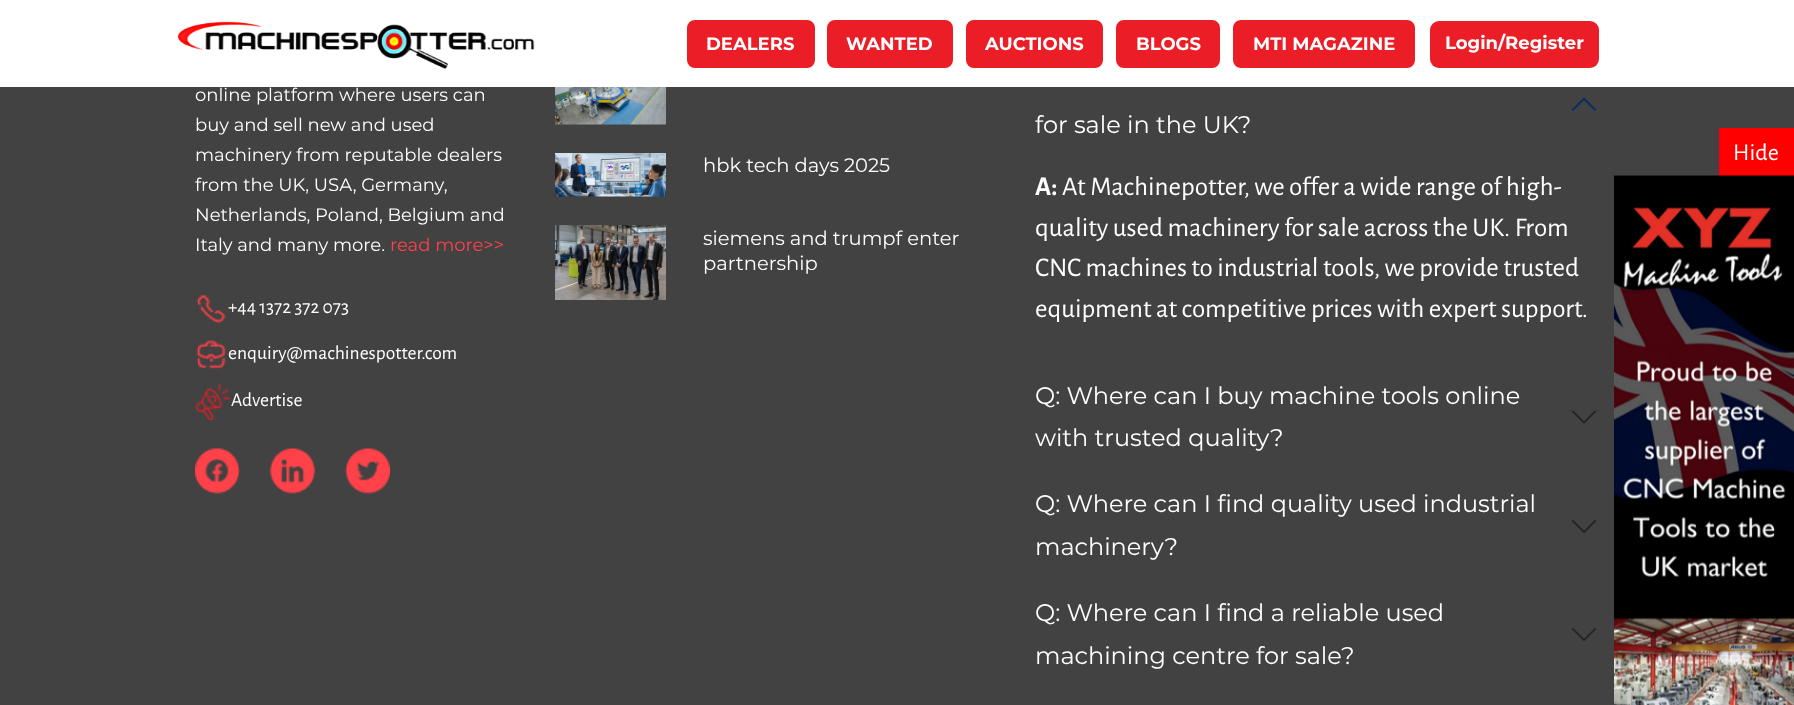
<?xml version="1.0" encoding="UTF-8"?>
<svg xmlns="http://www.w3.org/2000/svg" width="1794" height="705">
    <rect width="100%" height="100%" fill="#424242"/>
    <rect x="0" y="0" width="1794" height="87" fill="#FFFFFF"/>
    <image x="177" y="21" width="358" height="48" href="img_01.png"/>
    <rect x="688" y="21" width="126" height="46" rx="7" fill="#EB1D26" stroke="#EB1D26" stroke-width="2"/>
    <text x="706" y="50" font-family="Montserrat" font-size="18" font-weight="700" fill="#FFFFFF">DEALERS</text>
    <rect x="828" y="21" width="124" height="46" rx="7" fill="#EB1D26" stroke="#EB1D26" stroke-width="2"/>
    <text x="846" y="50" font-family="Montserrat" font-size="18" font-weight="700" fill="#FFFFFF">WANTED</text>
    <rect x="967" y="21" width="135" height="46" rx="7" fill="#EB1D26" stroke="#EB1D26" stroke-width="2"/>
    <text x="985" y="50" font-family="Montserrat" font-size="18" font-weight="700" fill="#FFFFFF">AUCTIONS</text>
    <rect x="1117" y="21" width="102" height="46" rx="7" fill="#EB1D26" stroke="#EB1D26" stroke-width="2"/>
    <text x="1136" y="50" font-family="Montserrat" font-size="18" font-weight="700" fill="#FFFFFF">BLOGS</text>
    <rect x="1234" y="21" width="180" height="46" rx="7" fill="#EB1D26" stroke="#EB1D26" stroke-width="2"/>
    <text x="1253" y="50" font-family="Montserrat" font-size="18" font-weight="700" fill="#FFFFFF">MTI MAGAZINE</text>
    <rect x="1430" y="21" width="169" height="47" rx="9" fill="#EB1D26"/>
    <text x="1445" y="49" font-family="Montserrat" font-size="18" font-weight="700" fill="#FFFFFF">Login/Register</text>
    <text font-family="Montserrat" font-size="18" fill="#FFFFFF">
        <tspan x="195" y="101">online platform where users can</tspan>
        <tspan x="195" y="131">buy and sell new and used</tspan>
        <tspan x="195" y="161">machinery from reputable dealers</tspan>
        <tspan x="195" y="191">from the UK, USA, Germany,</tspan>
        <tspan x="195" y="221">Netherlands, Poland, Belgium and</tspan>
        <tspan x="195" y="251">Italy and many more.</tspan>
    </text>
    <text x="390" y="251" font-family="Montserrat" font-size="18" fill="#FF414A">read more&gt;&gt;</text>
    <image x="196" y="294" width="30" height="29" href="img_02.png"/>
    <text x="228" y="313" font-family="Alegreya Sans" font-size="19.5" fill="#FFFFFF">+44 1372 372 073</text>
    <image x="196" y="340" width="30" height="30" href="img_03.png"/>
    <text x="228" y="359" font-family="Alegreya Sans" font-size="19.5" fill="#FFFFFF">enquiry@machinespotter.com</text>
    <image x="195" y="384" width="36" height="36" href="img_04.png"/>
    <text x="231" y="406" font-family="Alegreya Sans" font-size="19.5" fill="#FFFFFF">Advertise</text>
    <image x="195" y="448" width="45" height="46" href="img_05.png"/>
    <image x="270" y="448" width="45" height="46" href="img_06.png"/>
    <image x="345" y="448" width="45" height="46" href="img_07.png"/>
    <image x="555" y="87" width="111" height="38" href="img_08.png"/>
    <image x="555" y="153" width="111" height="44" href="img_09.png"/>
    <text x="703" y="172" font-family="Montserrat" font-size="19.5" fill="#FFFFFF">hbk tech days 2025</text>
    <image x="555" y="225" width="111" height="75" href="img_10.png"/>
    <text font-family="Montserrat" font-size="19.5" fill="#FFFFFF">
        <tspan x="703" y="245">siemens and trumpf enter</tspan>
        <tspan x="703" y="270">partnership</tspan>
    </text>
    <image x="1571" y="97" width="25" height="14" href="img_11.png"/>
    <text x="1035" y="133" font-family="Montserrat" font-size="24" fill="#FFFFFF">for sale in the UK?</text>
    <text x="1035" y="195" font-family="Alegreya Sans" font-size="27" font-weight="700" fill="#FFFFFF">A:</text>
    <text x="1062" y="195" font-family="Alegreya Sans" font-size="27" fill="#FFFFFF">At Machinepotter, we offer a wide range of high-</text>
    <text font-family="Alegreya Sans" font-size="27" fill="#FFFFFF">
        <tspan x="1035" y="236">quality used machinery for sale across the UK. From</tspan>
        <tspan x="1035" y="276">CNC machines to industrial tools, we provide trusted</tspan>
        <tspan x="1035" y="317">equipment at competitive prices with expert support.</tspan>
    </text>
    <text x="1035" y="404" font-family="Montserrat" font-size="24" fill="#FFFFFF">Q: Where can I buy machine tools online</text>
    <image x="1572" y="410" width="24" height="14" href="img_12.png"/>
    <text x="1035" y="446" font-family="Montserrat" font-size="24" fill="#FFFFFF">with trusted quality?</text>
    <text x="1035" y="512" font-family="Montserrat" font-size="24" fill="#FFFFFF">Q: Where can I find quality used industrial</text>
    <image x="1572" y="520" width="24" height="13" href="img_13.png"/>
    <text x="1035" y="555" font-family="Montserrat" font-size="24" fill="#FFFFFF">machinery?</text>
    <text x="1035" y="621" font-family="Montserrat" font-size="24" fill="#FFFFFF">Q: Where can I find a reliable used</text>
    <image x="1572" y="628" width="24" height="13" href="img_13.png"/>
    <text x="1035" y="664" font-family="Montserrat" font-size="24" fill="#FFFFFF">machining centre for sale?</text>
    <rect x="1719" y="128" width="75" height="48" fill="#FF0000"/>
    <text x="1733" y="160" font-family="Alegreya Sans" font-size="24" fill="#FFFFFF">Hide</text>
    <image x="1614" y="175" width="180" height="530" href="img_14.png"/>
</svg>
